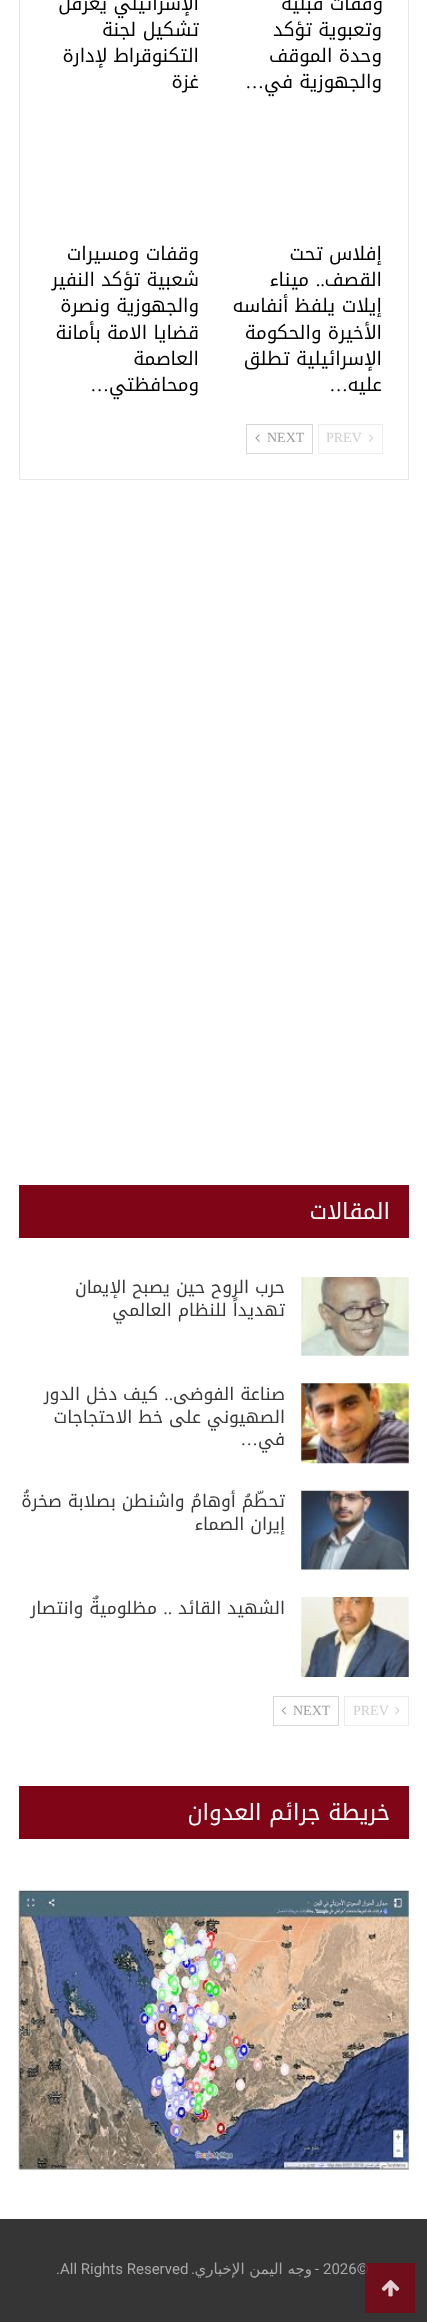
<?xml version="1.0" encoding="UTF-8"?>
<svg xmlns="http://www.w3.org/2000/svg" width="427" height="2322">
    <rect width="100%" height="100%" fill="#FFFFFF"/>
    <rect x="19.5" y="-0.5" width="389" height="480" fill="none" stroke="#E8E8E8"/>
    <text x="383" y="10" font-family="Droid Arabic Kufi" font-size="18.75" direction="rtl" fill="#000000">وقفات قبلية</text>
    <text font-family="Droid Arabic Kufi" font-size="18.75" direction="rtl" fill="#000000">
        <tspan x="382" y="36">وتعبوية تؤكد</tspan>
        <tspan x="382" y="62">وحدة الموقف</tspan>
        <tspan x="382" y="88">والجهوزية في</tspan>
    </text>
    <text x="264" y="88" font-family="Liberation Serif" font-size="18.75" direction="rtl" fill="#000000">…</text>
    <text font-family="Droid Arabic Kufi" font-size="18.75" direction="rtl" fill="#000000">
        <tspan x="199" y="10">الإسرائيلي يعرقل</tspan>
        <tspan x="199" y="36">تشكيل لجنة</tspan>
        <tspan x="199" y="62">التكنوقراط لإدارة</tspan>
        <tspan x="199" y="88">غزة</tspan>
    </text>
    <text font-family="Droid Arabic Kufi" font-size="18.75" direction="rtl" fill="#000000">
        <tspan x="382" y="260">إفلاس تحت</tspan>
        <tspan x="382" y="286">القصف</tspan>
    </text>
    <text x="325" y="286" font-family="Liberation Serif" font-size="18.75" direction="rtl" fill="#000000">..</text>
    <text x="309" y="286" font-family="Droid Arabic Kufi" font-size="18.75" direction="rtl" fill="#000000">ميناء</text>
    <text font-family="Droid Arabic Kufi" font-size="18.75" direction="rtl" fill="#000000">
        <tspan x="382" y="312">إيلات يلفظ أنفاسه</tspan>
        <tspan x="382" y="339">الأخيرة والحكومة</tspan>
        <tspan x="382" y="365">الإسرائيلية تطلق</tspan>
        <tspan x="382" y="391">عليه</tspan>
    </text>
    <text x="348" y="391" font-family="Liberation Serif" font-size="18.75" direction="rtl" fill="#000000">…</text>
    <text font-family="Droid Arabic Kufi" font-size="18.75" direction="rtl" fill="#000000">
        <tspan x="199" y="260">وقفات ومسيرات</tspan>
        <tspan x="199" y="286">شعبية تؤكد النفير</tspan>
        <tspan x="199" y="312">والجهوزية ونصرة</tspan>
        <tspan x="199" y="339">قضايا الامة بأمانة</tspan>
        <tspan x="199" y="365">العاصمة</tspan>
        <tspan x="199" y="391">ومحافظتي</tspan>
    </text>
    <text x="109" y="391" font-family="Liberation Serif" font-size="18.75" direction="rtl" fill="#000000">…</text>
    <rect x="318.5" y="424.5" width="64" height="29" fill="none" stroke="#ECECEC"/>
    <image x="369" y="434" width="5" height="8" href="img_01.png"/>
    <text x="326" y="442" font-family="Liberation Serif" font-size="14" fill="#CFCFCF">PREV</text>
    <rect x="246.5" y="424.5" width="66" height="29" fill="none" stroke="#D8D8D8"/>
    <text x="267" y="442" font-family="Liberation Serif" font-size="14" fill="#9E9E9E">NEXT</text>
    <image x="255" y="434" width="5" height="8" href="img_02.png"/>
    <rect x="19" y="1185" width="390" height="53" fill="#800517"/>
    <text x="390" y="1219" font-family="Droid Arabic Kufi" font-size="22.5" direction="rtl" fill="#FFFFFF">المقالات</text>
    <image x="301" y="1277" width="108" height="79" href="img_03.png"/>
    <text font-family="Droid Arabic Kufi" font-size="17.5" direction="rtl" fill="#383838">
        <tspan x="285" y="1293">حرب الروح حين يصبح الإيمان</tspan>
        <tspan x="285" y="1316">تهديداً للنظام العالمي</tspan>
    </text>
    <image x="301" y="1383" width="108" height="81" href="img_04.png"/>
    <text x="285" y="1400" font-family="Droid Arabic Kufi" font-size="17.5" direction="rtl" fill="#383838">صناعة الفوضى</text>
    <text x="173" y="1400" font-family="Liberation Serif" font-size="17.5" direction="rtl" fill="#383838">..</text>
    <text x="158" y="1400" font-family="Droid Arabic Kufi" font-size="17.5" direction="rtl" fill="#383838">كيف دخل الدور</text>
    <text font-family="Droid Arabic Kufi" font-size="17.5" direction="rtl" fill="#383838">
        <tspan x="285" y="1423">الصهيوني على خط الاحتجاجات</tspan>
        <tspan x="285" y="1445">في</tspan>
    </text>
    <text x="258" y="1445" font-family="Liberation Serif" font-size="17.5" direction="rtl" fill="#383838">…</text>
    <image x="301" y="1490" width="108" height="80" href="img_05.png"/>
    <text font-family="Droid Arabic Kufi" font-size="17.5" direction="rtl" fill="#383838">
        <tspan x="285" y="1507">تحطّمُ أوهامُ واشنطن بصلابة صخرةُ</tspan>
        <tspan x="285" y="1530">إيران الصماء</tspan>
    </text>
    <image x="301" y="1597" width="108" height="80" href="img_06.png"/>
    <text x="285" y="1614" font-family="Droid Arabic Kufi" font-size="17.5" direction="rtl" fill="#383838">الشهيد القائد</text>
    <text x="172" y="1614" font-family="Liberation Serif" font-size="17.5" direction="rtl" fill="#383838">..</text>
    <text x="157" y="1614" font-family="Droid Arabic Kufi" font-size="17.5" direction="rtl" fill="#383838">مظلوميةٌ وانتصار</text>
    <rect x="344.5" y="1696.5" width="64" height="29" fill="none" stroke="#ECECEC"/>
    <image x="395" y="1706" width="5" height="9" href="img_07.png"/>
    <text x="353" y="1715" font-family="Liberation Serif" font-size="14" fill="#CFCFCF">PREV</text>
    <rect x="273.5" y="1696.5" width="65" height="29" fill="none" stroke="#D8D8D8"/>
    <text x="293" y="1715" font-family="Liberation Serif" font-size="14" fill="#9E9E9E">NEXT</text>
    <image x="281" y="1706" width="5" height="9" href="img_08.png"/>
    <rect x="19" y="1786" width="390" height="49" fill="#800517"/>
    <text x="390" y="1820" font-family="Droid Arabic Kufi" font-size="22.5" direction="rtl" fill="#FFFFFF">خريطة جرائم العدوان</text>
    <rect x="19" y="1835" width="390" height="4" fill="#7F0215"/>
    <image x="18" y="1890" width="391" height="280" href="img_09.png"/>
    <rect x="0" y="2219" width="427" height="103" fill="#353535"/>
    <text x="323" y="2274" font-family="Roboto" font-size="15" fill="#A8A8A8">2026©</text>
    <text x="319" y="2274" font-family="Roboto" font-size="15" direction="rtl" fill="#A8A8A8">-</text>
    <text x="312" y="2274" font-family="DejaVu Sans" font-size="15" direction="rtl" fill="#A8A8A8">وجه اليمن الإخباري</text>
    <text x="56" y="2274" font-family="Roboto" font-size="15" fill="#A8A8A8">.All Rights Reserved</text>
    <text x="195" y="2274" font-family="Roboto" font-size="15" direction="rtl" fill="#A8A8A8">.</text>
    <rect x="365" y="2263" width="50" height="50" fill="#800517" fill-opacity="0.8"/>
    <image x="381" y="2280" width="19" height="17" href="img_10.png"/>
</svg>
